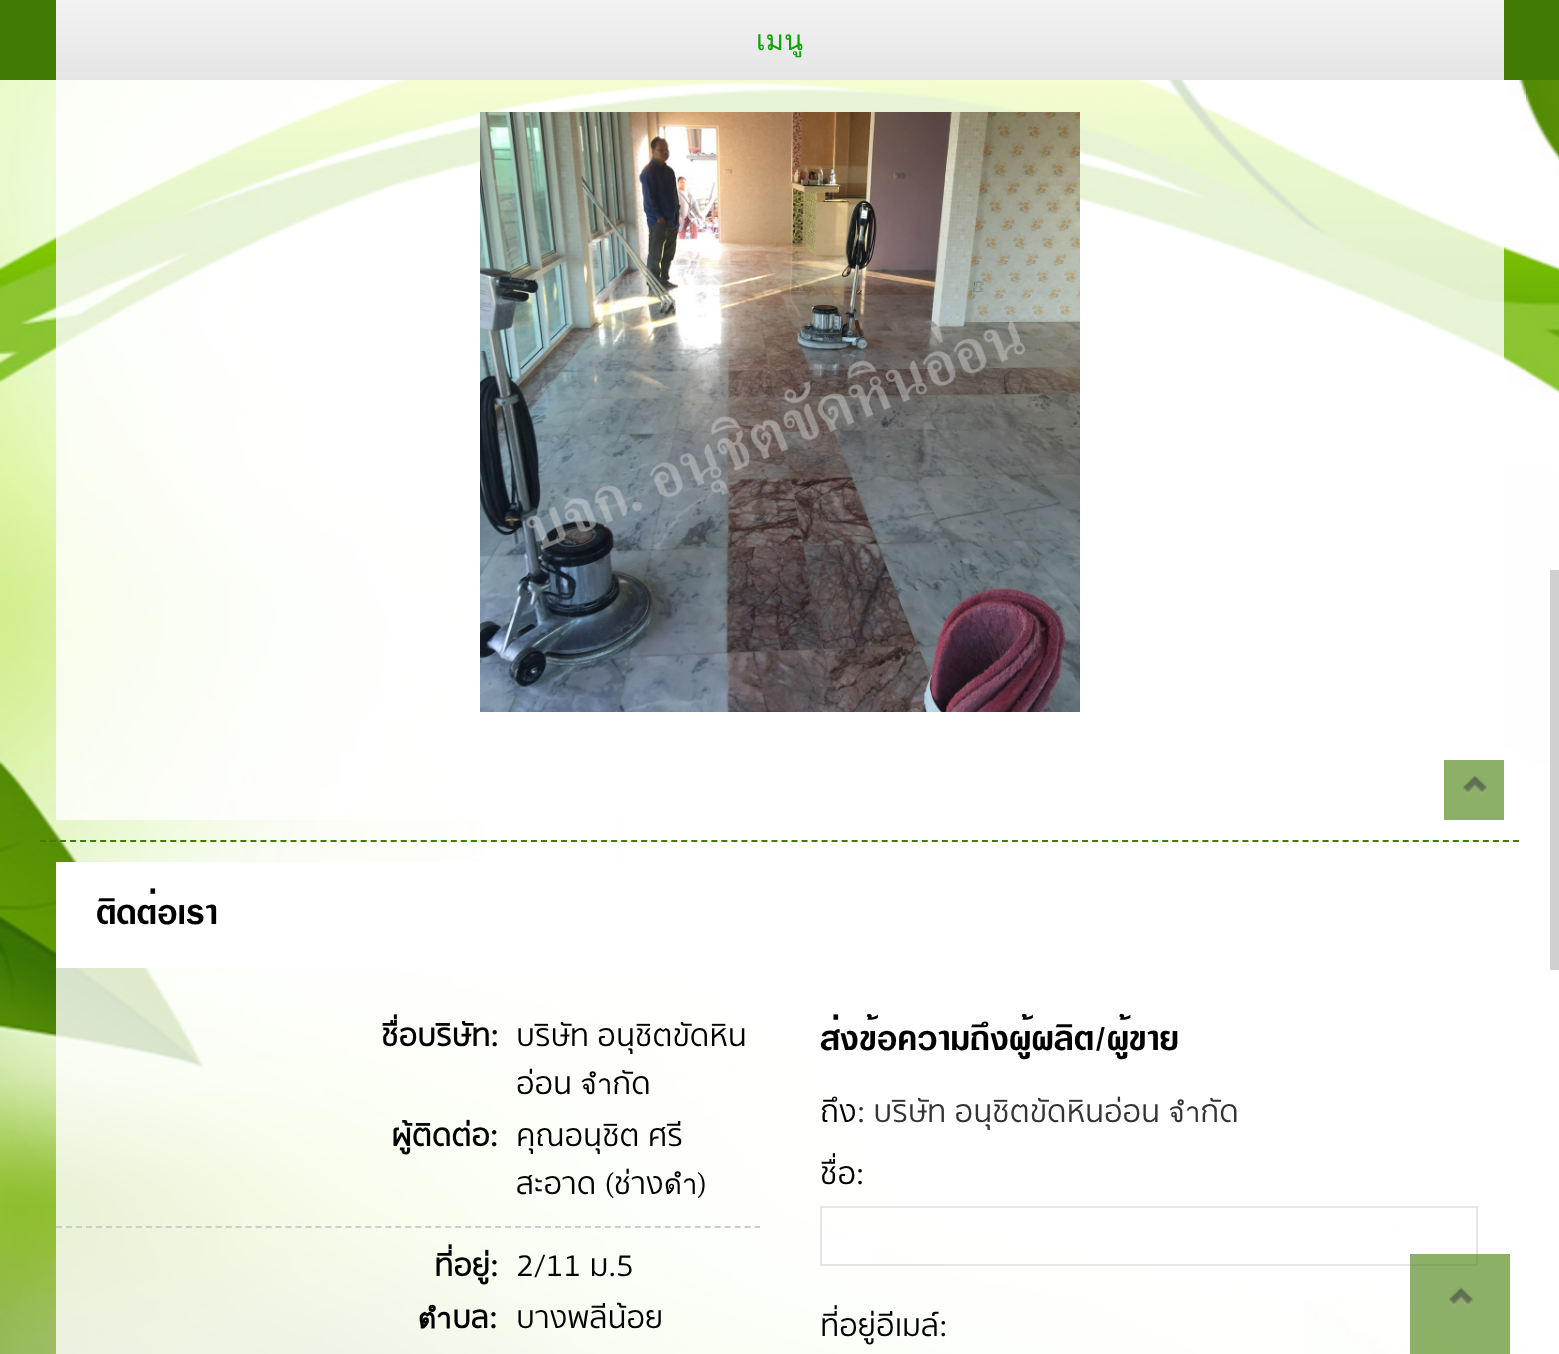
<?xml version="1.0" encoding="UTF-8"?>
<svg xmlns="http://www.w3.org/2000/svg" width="1559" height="1354">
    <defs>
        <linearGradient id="g1" gradientUnits="userSpaceOnUse" x1="780" y1="0" x2="780" y2="80"><stop offset="0" stop-color="#F2F2F2"/><stop offset="1" stop-color="#E5E5E5"/></linearGradient>
    </defs>
    <rect width="100%" height="100%" fill="#FFFFFF"/>
    <image x="0" y="80" width="1559" height="1274" href="img_01.png"/>
    <rect x="0" y="0" width="1559" height="80" fill="#417B03"/>
    <rect x="56" y="0" width="1448" height="80" fill="url(#g1)"/>
    <text x="756" y="50" font-family="Loma" font-size="28" fill="#0CA208">เมนู</text>
    <rect x="56" y="80" width="1448" height="740" fill="#FFFFFF" fill-opacity="0.8"/>
    <image x="480" y="112" width="600" height="600" href="img_02.png"/>
    <rect x="1444" y="760" width="60" height="60" fill="#8DB068"/>
    <image x="1463" y="776" width="24" height="18" href="img_03.png"/>
    <rect x="1550" y="570" width="9" height="400" fill="#D0D0D0"/>
    <path d="M 40 841 H 1520" fill="none" stroke="#417B03" stroke-width="2" stroke-dasharray="6 4.02"/>
    <rect x="56" y="968" width="1247" height="386" fill="#FFFFFF" fill-opacity="0.8"/>
    <rect x="56" y="862" width="731" height="106" fill="#FFFFFF"/>
    <text x="96" y="924" font-family="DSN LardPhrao" font-size="48" fill="#000000">ติดต่อเรา</text>
    <path d="M 56 1227 H 760" fill="none" stroke="#CCCCCC" stroke-width="2" stroke-dasharray="6 3.98"/>
    <text x="381" y="1046" font-family="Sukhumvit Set" font-size="28" font-weight="700" fill="#000000">ชื่อบริษัท:</text>
    <text font-family="Sukhumvit Set" font-size="28" fill="#000000">
        <tspan x="516" y="1046">บริษัท อนุชิตขัดหิน</tspan>
        <tspan x="516" y="1094">อ่อน จำกัด</tspan>
    </text>
    <text x="391" y="1146" font-family="Sukhumvit Set" font-size="28" font-weight="700" fill="#000000">ผู้ติดต่อ:</text>
    <text font-family="Sukhumvit Set" font-size="28" fill="#000000">
        <tspan x="516" y="1146">คุณอนุชิต ศรี</tspan>
        <tspan x="516" y="1194">สะอาด (ช่างดำ)</tspan>
    </text>
    <text x="434" y="1276" font-family="Sukhumvit Set" font-size="28" font-weight="700" fill="#000000">ที่อยู่:</text>
    <text x="516" y="1276" font-family="Sukhumvit Set" font-size="28" fill="#000000">2/11 ม.5</text>
    <text x="418" y="1328" font-family="Sukhumvit Set" font-size="28" font-weight="700" fill="#000000">ตำบล:</text>
    <text x="516" y="1328" font-family="Sukhumvit Set" font-size="28" fill="#000000">บางพลีน้อย</text>
    <text x="820" y="1050" font-family="DSN LardPhrao" font-size="48" fill="#000000">ส่งข้อความถึงผู้ผลิต/ผู้ขาย</text>
    <text x="820" y="1122" font-family="Sukhumvit Set" font-size="28" fill="#000000">ถึง</text>
    <text x="857" y="1122" font-family="Sukhumvit Set" font-size="28" fill="#333333">: บริษัท อนุชิตขัดหินอ่อน จำกัด</text>
    <text x="820" y="1184" font-family="Sukhumvit Set" font-size="28" fill="#000000">ชื่อ:</text>
    <rect x="822" y="1241" width="55" height="23" fill="#FFFFFF"/>
    <rect x="821" y="1207" width="656" height="58" fill="none" stroke="#E5E5E5" stroke-width="2"/>
    <text x="820" y="1336" font-family="Sukhumvit Set" font-size="28" fill="#000000">ที่อยู่อีเมล์:</text>
    <rect x="1410" y="1254" width="100" height="100" fill="#417B03" fill-opacity="0.6"/>
    <image x="1449" y="1287" width="24" height="19" href="img_04.png"/>
</svg>
